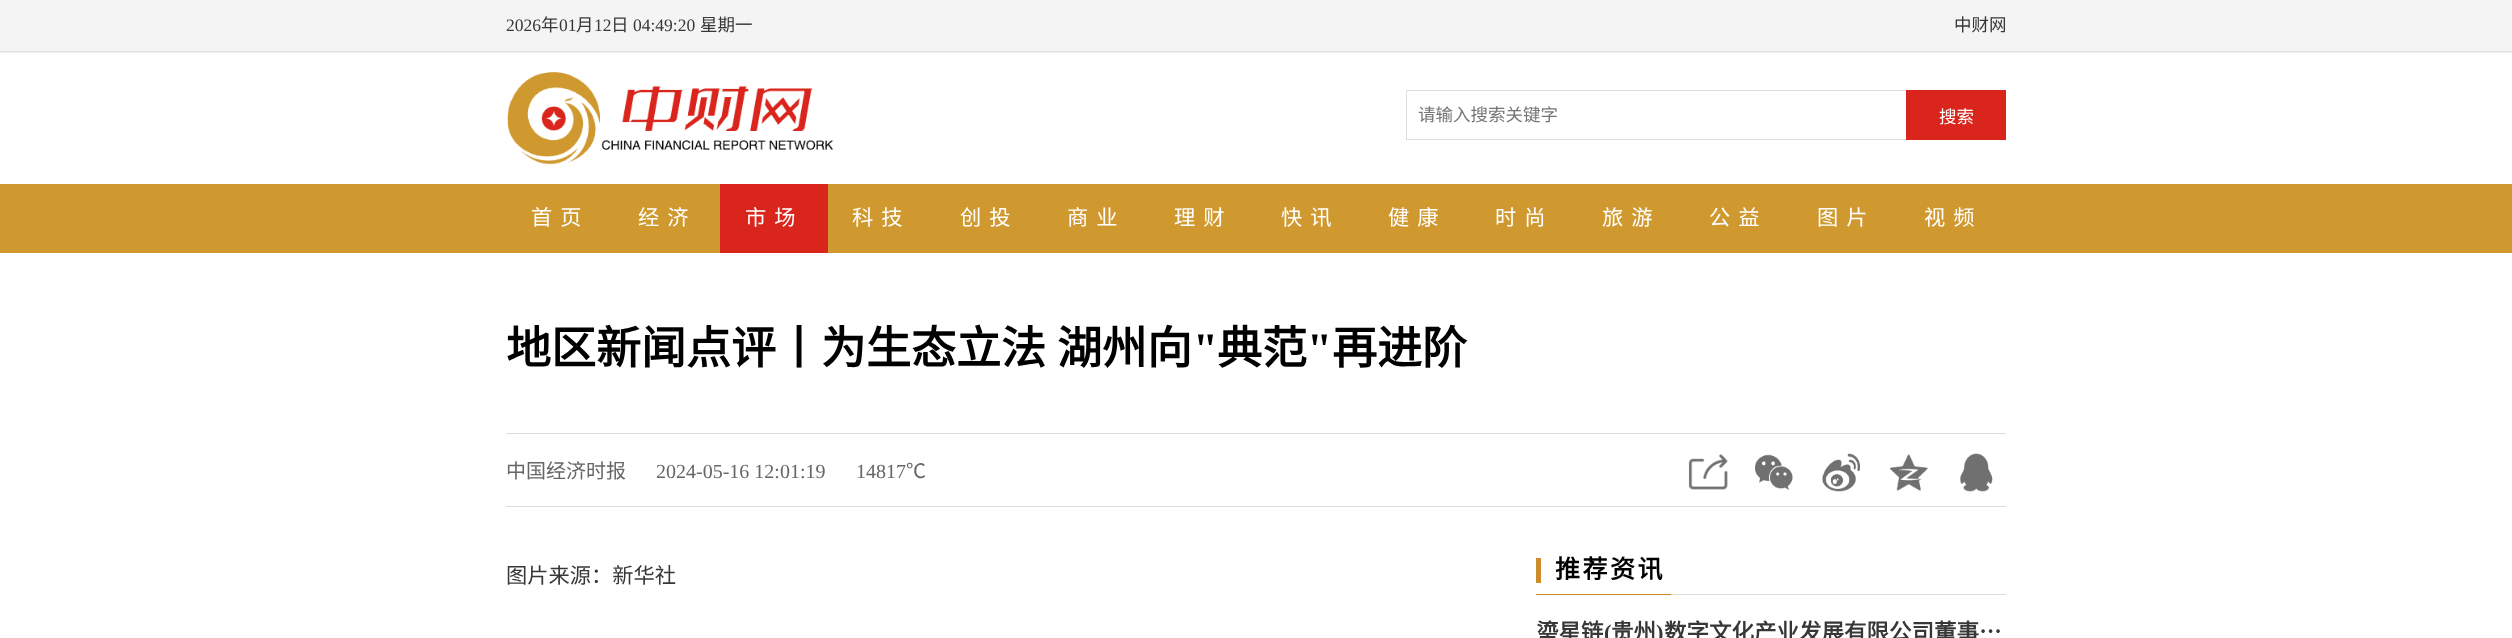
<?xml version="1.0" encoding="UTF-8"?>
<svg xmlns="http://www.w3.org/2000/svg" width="2512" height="638">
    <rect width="100%" height="100%" fill="#FFFFFF"/>
    <rect x="0" y="0" width="2512" height="53" fill="#F4F4F4"/>
    <rect x="0" y="51" width="2512" height="1" fill="#DDDDDD"/>
    <text x="506" y="31" font-family="Liberation Serif" font-size="17.5" fill="#373737">2026</text>
    <text x="541" y="31" font-family="Noto Sans CJK SC" font-size="17.5" fill="#373737">年</text>
    <text x="559" y="31" font-family="Liberation Serif" font-size="17.5" fill="#373737">01</text>
    <text x="576" y="31" font-family="Noto Sans CJK SC" font-size="17.5" fill="#373737">月</text>
    <text x="594" y="31" font-family="Liberation Serif" font-size="17.5" fill="#373737">12</text>
    <text x="611" y="31" font-family="Noto Sans CJK SC" font-size="17.5" fill="#373737">日</text>
    <text x="633" y="31" font-family="Liberation Serif" font-size="17.5" fill="#373737">04:49:20</text>
    <text x="700" y="31" font-family="Noto Sans CJK SC" font-size="17.5" fill="#373737">星期一</text>
    <text x="1954" y="31" font-family="Noto Sans CJK SC" font-size="17.5" fill="#373737">中财网</text>
    <image x="507" y="72" width="327" height="93" href="img_01.png"/>
    <rect x="1406" y="90" width="500" height="1" fill="#DDDDDD"/>
    <rect x="1406" y="139" width="500" height="1" fill="#DDDDDD"/>
    <rect x="1406" y="90" width="1" height="50" fill="#DDDDDD"/>
    <text x="1418" y="121" font-family="Noto Sans CJK SC" font-size="17.5" fill="#757575">请输入搜索关键字</text>
    <rect x="1906" y="90" width="100" height="50" fill="#DA251D"/>
    <text x="1939" y="123" font-family="Noto Sans CJK SC" font-size="17.5" fill="#FFFFFF">搜索</text>
    <rect x="0" y="184" width="2512" height="69" fill="#D0992F"/>
    <text x="531" y="225" font-family="Noto Sans CJK SC" font-size="21.25" letter-spacing="8" fill="#FFFFFF">首页</text>
    <text x="638" y="225" font-family="Noto Sans CJK SC" font-size="21.25" letter-spacing="8" fill="#FFFFFF">经济</text>
    <rect x="720" y="184" width="108" height="69" fill="#DA251D"/>
    <text x="745" y="225" font-family="Noto Sans CJK SC" font-size="21.25" letter-spacing="8" fill="#FFFFFF">市场</text>
    <text x="852" y="225" font-family="Noto Sans CJK SC" font-size="21.25" letter-spacing="8" fill="#FFFFFF">科技</text>
    <text x="960" y="225" font-family="Noto Sans CJK SC" font-size="21.25" letter-spacing="8" fill="#FFFFFF">创投</text>
    <text x="1067" y="225" font-family="Noto Sans CJK SC" font-size="21.25" letter-spacing="8" fill="#FFFFFF">商业</text>
    <text x="1174" y="225" font-family="Noto Sans CJK SC" font-size="21.25" letter-spacing="8" fill="#FFFFFF">理财</text>
    <text x="1281" y="225" font-family="Noto Sans CJK SC" font-size="21.25" letter-spacing="8" fill="#FFFFFF">快讯</text>
    <text x="1388" y="225" font-family="Noto Sans CJK SC" font-size="21.25" letter-spacing="8" fill="#FFFFFF">健康</text>
    <text x="1495" y="225" font-family="Noto Sans CJK SC" font-size="21.25" letter-spacing="8" fill="#FFFFFF">时尚</text>
    <text x="1602" y="225" font-family="Noto Sans CJK SC" font-size="21.25" letter-spacing="8" fill="#FFFFFF">旅游</text>
    <text x="1709" y="225" font-family="Noto Sans CJK SC" font-size="21.25" letter-spacing="8" fill="#FFFFFF">公益</text>
    <text x="1817" y="225" font-family="Noto Sans CJK SC" font-size="21.25" letter-spacing="8" fill="#FFFFFF">图片</text>
    <text x="1924" y="225" font-family="Noto Sans CJK SC" font-size="21.25" letter-spacing="8" fill="#FFFFFF">视频</text>
    <text x="506" y="364" word-spacing="1" font-family="Noto Sans CJK SC" font-size="45" font-weight="700" fill="#000000">地区新闻点评丨为生态立法 湖州向</text>
    <text x="1193" y="364" font-family="Liberation Serif" font-size="45" font-weight="700" fill="#000000">"</text>
    <text x="1217" y="364" font-family="Noto Sans CJK SC" font-size="45" font-weight="700" fill="#000000">典范</text>
    <text x="1307" y="364" font-family="Liberation Serif" font-size="45" font-weight="700" fill="#000000">"</text>
    <text x="1332" y="364" font-family="Noto Sans CJK SC" font-size="45" font-weight="700" fill="#000000">再进阶</text>
    <rect x="506" y="433" width="1500" height="1" fill="#DDDDDD"/>
    <rect x="506" y="506" width="1500" height="1" fill="#DDDDDD"/>
    <text x="506" y="478" font-family="Noto Sans CJK SC" font-size="20" fill="#666666">中国经济时报</text>
    <text x="656" y="478" font-family="Liberation Serif" font-size="20" fill="#666666">2024-05-16 12:01:19</text>
    <text x="856" y="478" font-family="Liberation Serif" font-size="20" fill="#666666">14817</text>
    <text x="906" y="478" font-family="Noto Sans CJK SC" font-size="20" fill="#666666">℃</text>
    <image x="1688" y="454" width="40" height="36" href="img_02.png"/>
    <image x="1755" y="454" width="38" height="36" href="img_03.png"/>
    <image x="1822" y="453" width="38" height="39" href="img_04.png"/>
    <image x="1890" y="454" width="38" height="37" href="img_05.png"/>
    <image x="1959" y="453" width="34" height="39" href="img_06.png"/>
    <text x="506" y="583" font-family="Noto Sans CJK SC" font-size="21.25" fill="#373737">图片来源：新华社</text>
    <rect x="1671" y="594" width="335" height="1" fill="#DDDDDD"/>
    <rect x="1536" y="558" width="5" height="25" fill="#CD8C2A"/>
    <rect x="1536" y="594" width="135" height="1" fill="#CD8C2A"/>
    <text x="1555" y="578" font-family="Noto Sans CJK SC" font-size="25" font-weight="700" letter-spacing="2.5" fill="#000000">推荐资讯</text>
    <text x="1536" y="640" font-family="Noto Sans CJK SC" font-size="22.5" font-weight="700" fill="#373737">瑬星链</text>
    <text x="1604" y="640" font-family="Liberation Serif" font-size="22.5" font-weight="700" fill="#373737">(</text>
    <text x="1611" y="640" font-family="Noto Sans CJK SC" font-size="22.5" font-weight="700" fill="#373737">贵州</text>
    <text x="1656" y="640" font-family="Liberation Serif" font-size="22.5" font-weight="700" fill="#373737">)</text>
    <text x="1664" y="640" font-family="Noto Sans CJK SC" font-size="22.5" font-weight="700" fill="#373737">数字文化产业发展有限公司董事…</text>
</svg>
